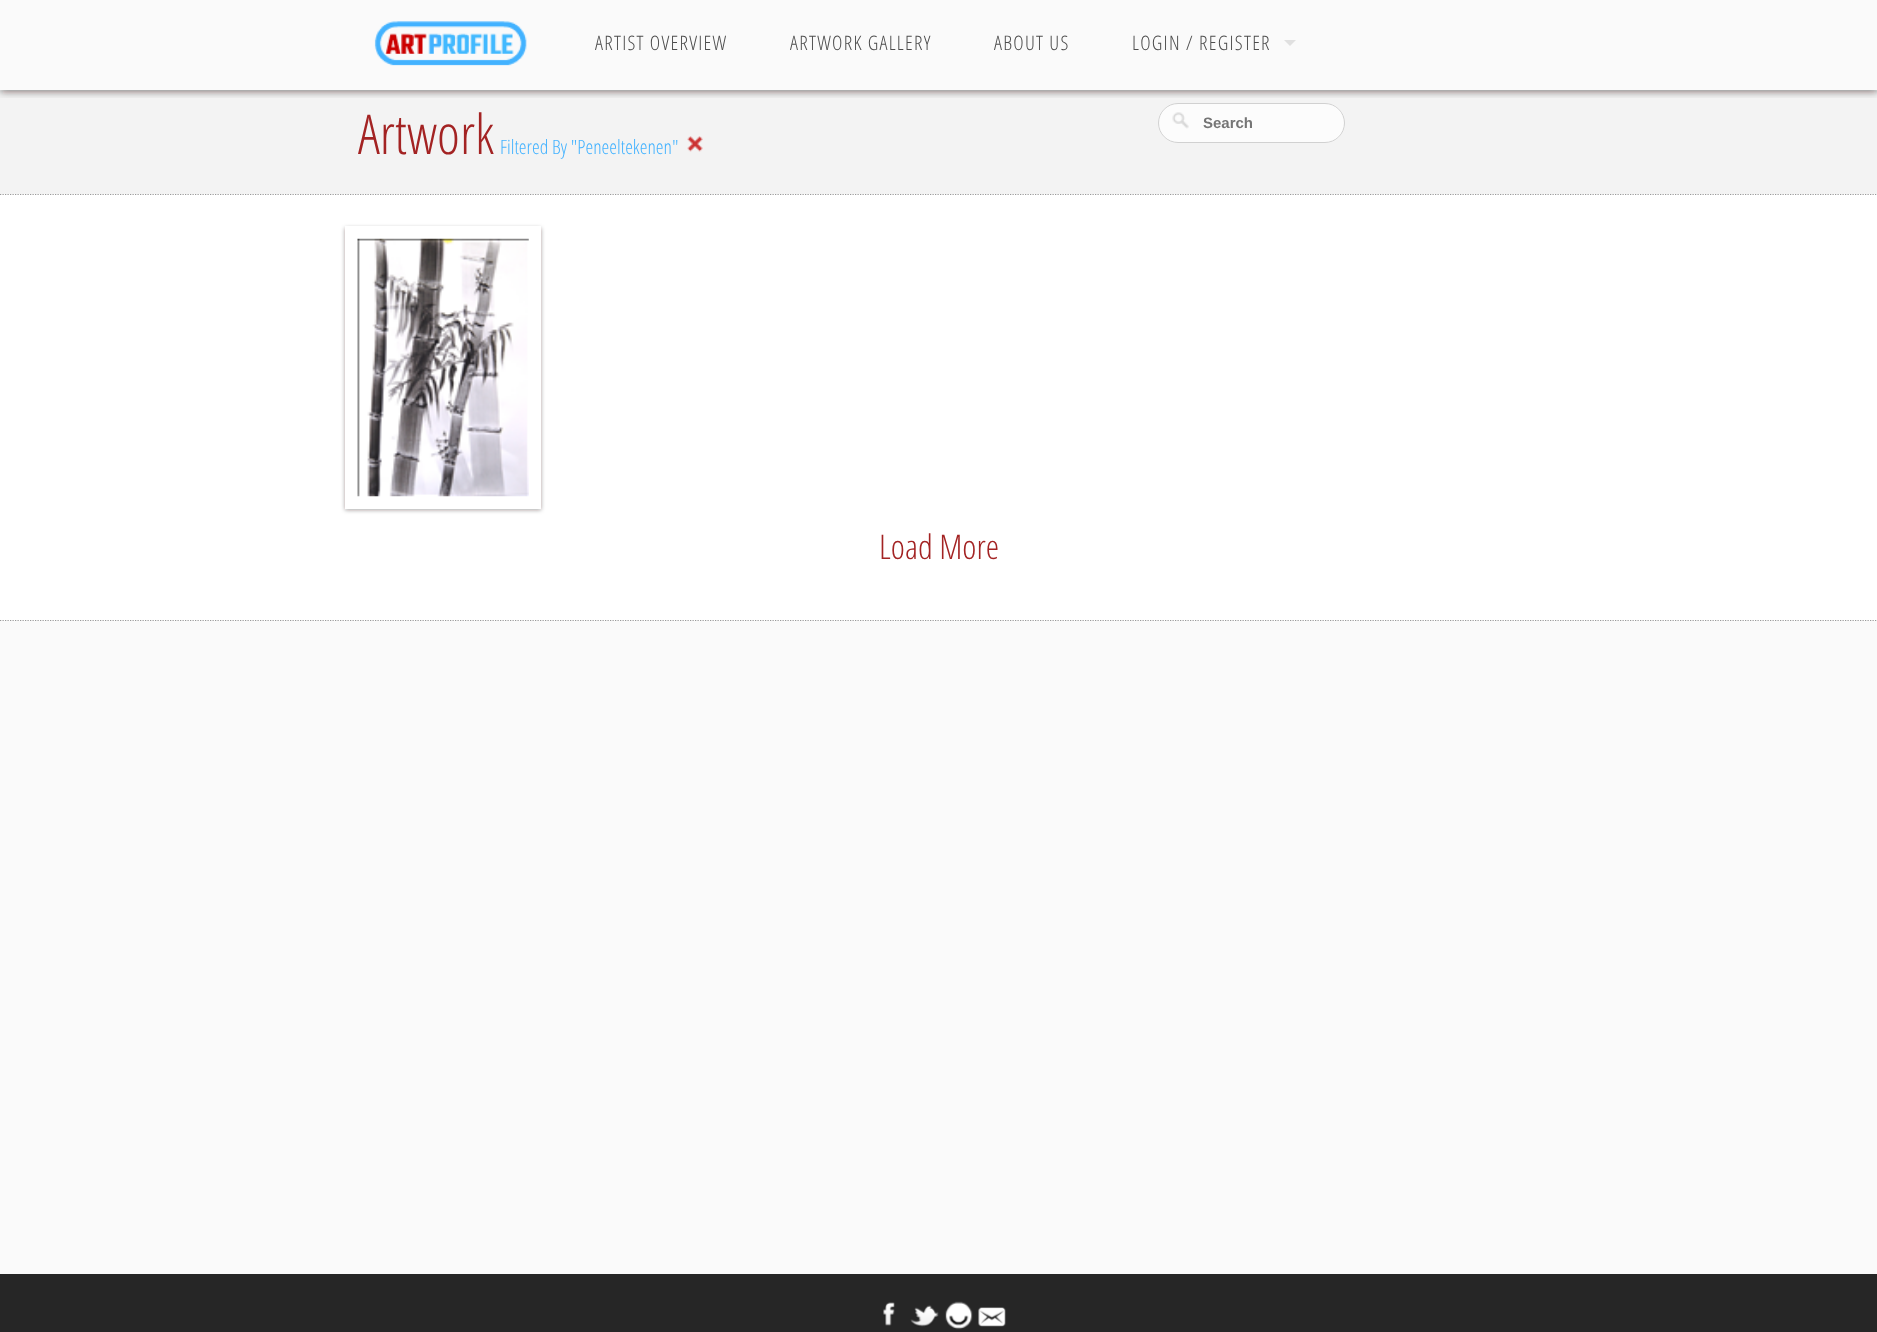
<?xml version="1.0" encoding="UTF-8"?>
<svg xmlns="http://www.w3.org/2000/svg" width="1877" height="1332">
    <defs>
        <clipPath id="clip1"><rect x="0" y="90" width="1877" height="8"/></clipPath>
        <filter id="blur1" x="-50%" y="-200%" width="200%" height="500%"><feGaussianBlur stdDeviation="4"/></filter>
        <filter id="blur2" x="-50%" y="-200%" width="200%" height="500%"><feGaussianBlur stdDeviation="2"/></filter>
    </defs>
    <rect width="100%" height="100%" fill="#FAFAFA"/>
    <rect x="0" y="90" width="1877" height="104" fill="#F3F3F3"/>
    <rect x="1158" y="103" width="187" height="40" rx="20" fill="#FCFCFC"/>
    <image x="1172" y="112" width="17" height="17" href="img_03.png"/>
    <rect x="1158.5" y="103.5" width="186" height="39" rx="19.5" fill="none" stroke="#D1D1D1"/>
    <g clip-path="url(#clip1)">
        <rect x="0" y="1" width="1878" height="90" fill="#221919" fill-opacity="0.6" filter="url(#blur1)"/>
    </g>
    <image x="374" y="21" width="153" height="45" href="img_01.png"/>
    <text x="595" y="50" font-family="Open Sans Condensed" font-size="20" font-weight="300" letter-spacing="1.25" fill="#4D4D4D">ARTIST OVERVIEW</text>
    <text x="790" y="50" font-family="Open Sans Condensed" font-size="20" font-weight="300" letter-spacing="1.25" fill="#4D4D4D">ARTWORK GALLERY</text>
    <text x="994" y="50" font-family="Open Sans Condensed" font-size="20" font-weight="300" letter-spacing="1.25" fill="#4D4D4D">ABOUT US</text>
    <text x="1132" y="50" font-family="Open Sans Condensed" font-size="20" font-weight="300" letter-spacing="1.25" fill="#4D4D4D">LOGIN / REGISTER</text>
    <path d="M 1284 40 H 1296 L 1290 46 Z" fill="#E0E0E0"/>
    <text x="358" y="154" font-family="Open Sans Condensed" font-size="55" font-weight="300" fill="#A32323">Artwork</text>
    <text x="500" y="154" font-family="Open Sans Condensed" font-size="19.75" font-weight="300" fill="#42B2FF">Filtered By "Peneeltekenen"</text>
    <image x="687" y="136" width="16" height="16" href="img_02.png"/>
    <text x="1203" y="128" font-family="Liberation Sans" font-size="15" font-weight="700" fill="#757575">Search</text>
    <rect x="0" y="194" width="1877" height="427" fill="#FFFFFF"/>
    <path d="M 0 194.5 H 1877.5" fill="none" stroke="#999999" stroke-width="1.2" stroke-dasharray="1.25 1.25"/>
    <path d="M 0 620.5 H 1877.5" fill="none" stroke="#999999" stroke-width="1.2" stroke-dasharray="1.25 1.25"/>
    <rect x="345" y="228" width="196" height="282" fill="#221919" fill-opacity="0.4" filter="url(#blur2)"/>
    <rect x="345" y="226" width="196" height="283" fill="#FFFFFF"/>
    <image x="357" y="238" width="172" height="259" href="img_04.png"/>
    <text x="879" y="559" font-family="Open Sans Condensed" font-size="34" font-weight="300" fill="#A32323">Load More</text>
    <rect x="0" y="1274" width="1877" height="58" fill="#262626"/>
    <image x="883" y="1302" width="12" height="24" href="img_05.png"/>
    <image x="910" y="1305" width="29" height="22" href="img_06.png"/>
    <image x="945" y="1301" width="28" height="29" href="img_07.png"/>
    <image x="978" y="1307" width="28" height="20" href="img_08.png"/>
</svg>
